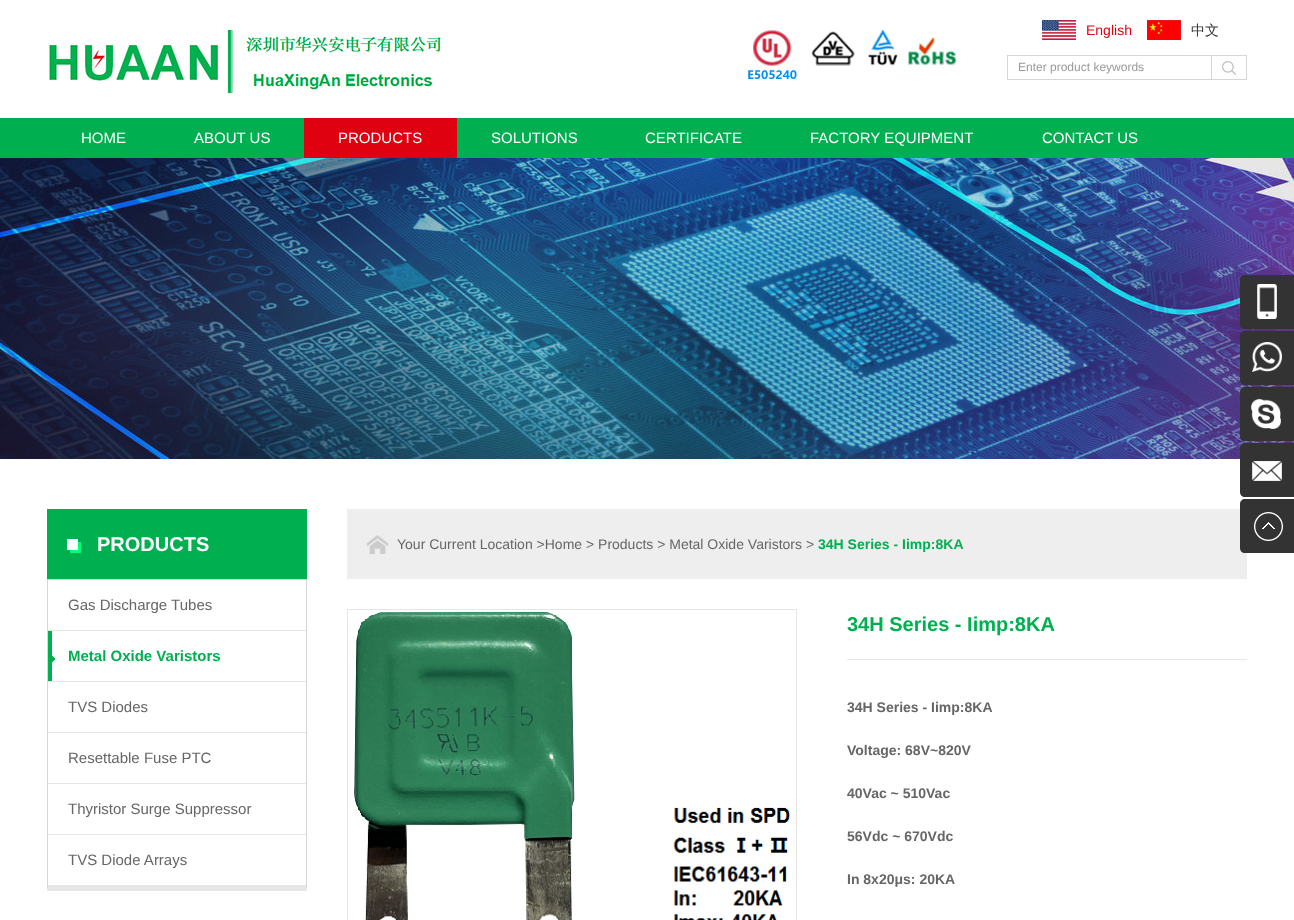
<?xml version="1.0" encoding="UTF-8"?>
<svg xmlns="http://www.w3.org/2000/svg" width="1294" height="920">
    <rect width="100%" height="100%" fill="#FFFFFF"/>
    <image x="49" y="30" width="392" height="63" href="img_01.png"/>
    <image x="748" y="30" width="209" height="49" href="img_02.png"/>
    <image x="1042" y="20" width="34" height="20" href="img_03.png"/>
    <text x="1086" y="35" font-family="Liberation Sans" font-size="14" fill="#DF0010">English</text>
    <image x="1147" y="20" width="34" height="20" href="img_04.png"/>
    <text x="1191" y="35" font-family="WenQuanYi Zen Hei" font-size="14" font-weight="500" fill="#333333">中文</text>
    <rect x="1007" y="55" width="240" height="1" fill="#D6D6D6"/>
    <rect x="1007" y="79" width="240" height="1" fill="#D6D6D6"/>
    <rect x="1007" y="55" width="1" height="25" fill="#D6D6D6"/>
    <text x="1018" y="71" font-family="Liberation Sans" font-size="12" fill="#999999">Enter product keywords</text>
    <image x="1211" y="56" width="36" height="23" href="img_05.png"/>
    <rect x="0" y="118" width="1294" height="40" fill="#00B050"/>
    <text x="81" y="143" font-family="Liberation Sans" font-size="15" fill="#FFFFFF">HOME</text>
    <text x="194" y="143" font-family="Liberation Sans" font-size="15" fill="#FFFFFF">ABOUT US</text>
    <rect x="304" y="118" width="153" height="40" fill="#DF0010"/>
    <text x="338" y="143" font-family="Liberation Sans" font-size="15" fill="#FFFFFF">PRODUCTS</text>
    <text x="491" y="143" font-family="Liberation Sans" font-size="15" fill="#FFFFFF">SOLUTIONS</text>
    <text x="645" y="143" font-family="Liberation Sans" font-size="15" fill="#FFFFFF">CERTIFICATE</text>
    <text x="810" y="143" font-family="Liberation Sans" font-size="15" fill="#FFFFFF">FACTORY EQUIPMENT</text>
    <text x="1042" y="143" font-family="Liberation Sans" font-size="15" fill="#FFFFFF">CONTACT US</text>
    <image x="0" y="158" width="1294" height="301" href="img_06.png"/>
    <path d="M 1245 275 H 1294 V 329 H 1245 C 1242 329 1240 327 1240 324 V 280 C 1240 277 1242 275 1245 275 Z" fill="#333333"/>
    <image x="1257" y="284" width="20" height="35" href="img_07.png"/>
    <path d="M 1245 331 H 1294 V 385 H 1245 C 1242 385 1240 383 1240 380 V 336 C 1240 333 1242 331 1245 331 Z" fill="#333333"/>
    <image x="1252" y="342" width="30" height="30" href="img_08.png"/>
    <path d="M 1245 387 H 1294 V 441 H 1245 C 1242 441 1240 439 1240 436 V 392 C 1240 389 1242 387 1245 387 Z" fill="#333333"/>
    <image x="1251" y="399" width="30" height="30" href="img_09.png"/>
    <path d="M 1245 443 H 1294 V 497 H 1245 C 1242 497 1240 495 1240 492 V 448 C 1240 445 1242 443 1245 443 Z" fill="#333333"/>
    <image x="1252" y="461" width="30" height="20" href="img_10.png"/>
    <rect x="347" y="509" width="900" height="70" fill="#EEEEEE"/>
    <path d="M 1245 499 H 1294 V 553 H 1245 C 1242 553 1240 551 1240 548 V 504 C 1240 501 1242 499 1245 499 Z" fill="#333333"/>
    <image x="1254" y="512" width="29" height="29" href="img_11.png"/>
    <rect x="47" y="509" width="260" height="70" fill="#00B050"/>
    <image x="67" y="539" width="14" height="14" href="img_12.png"/>
    <text x="97" y="551" font-family="Liberation Sans" font-size="20" font-weight="700" fill="#FFFFFF">PRODUCTS</text>
    <rect x="47" y="579" width="260" height="1" fill="#D6D6D6"/>
    <path d="M 307 579 V 891 L 306 886 V 580 Z" fill="#D6D6D6"/>
    <path d="M 307 891 H 47 L 48 886 H 306 Z" fill="#E6E6E6"/>
    <path d="M 47 891 V 579 L 48 580 V 886 Z" fill="#D6D6D6"/>
    <rect x="48" y="630" width="258" height="1" fill="#E6E6E6"/>
    <text x="68" y="610" font-family="Liberation Sans" font-size="15" fill="#666666">Gas Discharge Tubes</text>
    <image x="48" y="631" width="7" height="50" href="img_13.png"/>
    <rect x="48" y="681" width="258" height="1" fill="#E6E6E6"/>
    <text x="68" y="661" font-family="Liberation Sans" font-size="15" font-weight="700" fill="#00B050">Metal Oxide Varistors</text>
    <rect x="48" y="732" width="258" height="1" fill="#E6E6E6"/>
    <text x="68" y="712" font-family="Liberation Sans" font-size="15" fill="#666666">TVS Diodes</text>
    <rect x="48" y="783" width="258" height="1" fill="#E6E6E6"/>
    <text x="68" y="763" font-family="Liberation Sans" font-size="15" fill="#666666">Resettable Fuse PTC</text>
    <rect x="48" y="834" width="258" height="1" fill="#E6E6E6"/>
    <text x="68" y="814" font-family="Liberation Sans" font-size="15" fill="#666666">Thyristor Surge Suppressor</text>
    <rect x="48" y="885" width="258" height="1" fill="#E6E6E6"/>
    <text x="68" y="865" font-family="Liberation Sans" font-size="15" fill="#666666">TVS Diode Arrays</text>
    <image x="367" y="535" width="21" height="19" href="img_14.png"/>
    <text x="397" y="549" font-family="Liberation Sans" font-size="14" fill="#666666">Your Current Location &gt;Home &gt; Products &gt; Metal Oxide Varistors &gt;</text>
    <text x="818" y="549" font-family="Liberation Sans" font-size="14" font-weight="700" fill="#00B050">34H Series - Iimp:8KA</text>
    <rect x="347.5" y="609.5" width="449" height="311" fill="none" stroke="#E6E6E6"/>
    <image x="354" y="612" width="437" height="308" href="img_15.png"/>
    <rect x="847" y="659" width="400" height="1" fill="#E6E6E6"/>
    <text x="847" y="631" font-family="Liberation Sans" font-size="20" font-weight="700" fill="#00B050">34H Series - Iimp:8KA</text>
    <text x="847" y="712" font-family="Liberation Sans" font-size="14" font-weight="700" fill="#666666">34H Series - Iimp:8KA</text>
    <text x="847" y="755" font-family="Liberation Sans" font-size="14" font-weight="700" fill="#666666">Voltage: 68V~820V</text>
    <text x="847" y="798" font-family="Liberation Sans" font-size="14" font-weight="700" fill="#666666">40Vac ~ 510Vac</text>
    <text x="847" y="841" font-family="Liberation Sans" font-size="14" font-weight="700" fill="#666666">56Vdc ~ 670Vdc</text>
    <text x="847" y="884" font-family="Liberation Sans" font-size="14" font-weight="700" fill="#666666">In 8x20μs: 20KA</text>
</svg>
